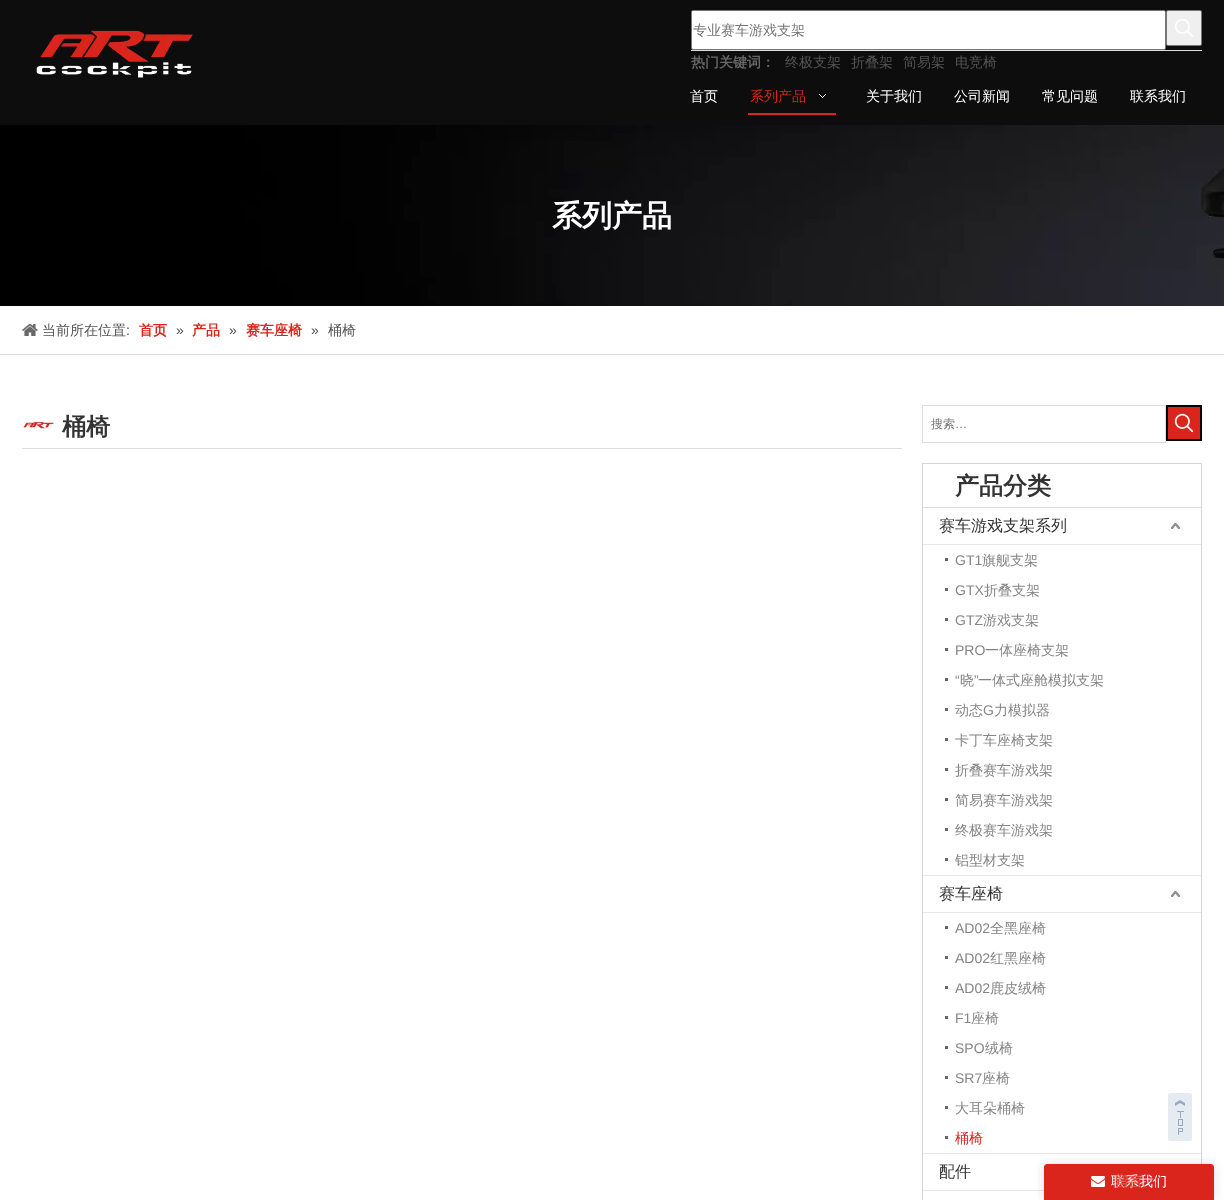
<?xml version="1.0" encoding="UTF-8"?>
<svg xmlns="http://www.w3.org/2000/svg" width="1224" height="1200">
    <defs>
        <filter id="blur1" x="-50%" y="-200%" width="200%" height="500%"><feGaussianBlur stdDeviation="5"/></filter>
    </defs>
    <rect width="100%" height="100%" fill="#FFFFFF"/>
    <rect x="0" y="0" width="1224" height="125" fill="#0D0D0D"/>
    <image x="36" y="30" width="157" height="48" href="img_01.png"/>
    <rect x="691" y="50" width="511" height="1" fill="#DDDDDD"/>
    <rect x="691.5" y="10.5" width="474" height="39" rx="1.5" fill="#FFFFFF" stroke="#767676"/>
    <text x="693" y="35" font-family="WenQuanYi Zen Hei" font-size="14" font-weight="500" fill="#757575">专业赛车游戏支架</text>
    <rect x="1166.5" y="10.5" width="35" height="35" rx="1.5" fill="#EFEFEF" stroke="#767676"/>
    <image x="1175" y="19" width="18" height="18" href="img_02.png"/>
    <text x="691" y="67" font-family="WenQuanYi Zen Hei" font-size="14" font-weight="700" fill="#666666">热门关键词：</text>
    <text x="785" y="67" font-family="WenQuanYi Zen Hei" font-size="14" font-weight="500" fill="#545454">终极支架</text>
    <text x="851" y="67" font-family="WenQuanYi Zen Hei" font-size="14" font-weight="500" fill="#545454">折叠架</text>
    <text x="903" y="67" font-family="WenQuanYi Zen Hei" font-size="14" font-weight="500" fill="#545454">简易架</text>
    <text x="955" y="67" font-family="WenQuanYi Zen Hei" font-size="14" font-weight="500" fill="#545454">电竞椅</text>
    <text x="690" y="101" font-family="WenQuanYi Zen Hei" font-size="14" font-weight="500" fill="#FFFFFF">首页</text>
    <rect x="748" y="113" width="88" height="2" fill="#DA251C"/>
    <text x="750" y="101" font-family="WenQuanYi Zen Hei" font-size="14" font-weight="500" fill="#DA251C">系列产品</text>
    <image x="819" y="94" width="7" height="4" href="img_03.png"/>
    <text x="866" y="101" font-family="WenQuanYi Zen Hei" font-size="14" font-weight="500" fill="#FFFFFF">关于我们</text>
    <text x="954" y="101" font-family="WenQuanYi Zen Hei" font-size="14" font-weight="500" fill="#FFFFFF">公司新闻</text>
    <text x="1042" y="101" font-family="WenQuanYi Zen Hei" font-size="14" font-weight="500" fill="#FFFFFF">常见问题</text>
    <text x="1130" y="101" font-family="WenQuanYi Zen Hei" font-size="14" font-weight="500" fill="#FFFFFF">联系我们</text>
    <image x="0" y="125" width="1224" height="181" href="img_04.png"/>
    <text x="552" y="226" font-family="WenQuanYi Zen Hei" font-size="30" font-weight="700" fill="#FFFFFF">系列产品</text>
    <rect x="0" y="354" width="1224" height="1" fill="#DDDDDD"/>
    <image x="22" y="324" width="16" height="12" href="img_05.png"/>
    <text x="42" y="335" font-family="WenQuanYi Zen Hei" font-size="14" font-weight="500" fill="#545454">当前所在位置</text>
    <text x="126" y="335" font-family="Liberation Sans" font-size="14" fill="#545454">:</text>
    <text x="139" y="335" font-family="WenQuanYi Zen Hei" font-size="14" font-weight="700" fill="#DA251C">首页</text>
    <text x="176" y="335" font-family="Liberation Sans" font-size="14" fill="#545454">»</text>
    <text x="192" y="335" font-family="WenQuanYi Zen Hei" font-size="14" font-weight="700" fill="#DA251C">产品</text>
    <text x="229" y="335" font-family="Liberation Sans" font-size="14" fill="#545454">»</text>
    <text x="246" y="335" font-family="WenQuanYi Zen Hei" font-size="14" font-weight="700" fill="#DA251C">赛车座椅</text>
    <text x="311" y="335" font-family="Liberation Sans" font-size="14" fill="#545454">»</text>
    <text x="328" y="335" font-family="WenQuanYi Zen Hei" font-size="14" font-weight="500" fill="#545454">桶椅</text>
    <image x="23" y="422" width="31" height="9" href="img_06.png"/>
    <rect x="22" y="448" width="880" height="1" fill="#DDDDDD"/>
    <text x="62" y="435" font-family="WenQuanYi Zen Hei" font-size="24" font-weight="700" fill="#333333">桶椅</text>
    <rect x="922.5" y="405.5" width="243" height="37" fill="none" stroke="#DDDDDD"/>
    <text x="931" y="428" font-family="WenQuanYi Zen Hei" font-size="12" font-weight="500" fill="#757575">搜索</text>
    <text x="955" y="428" font-family="Liberation Sans" font-size="12" fill="#757575">…</text>
    <rect x="1167" y="406" width="34" height="34" fill="#DA251C" stroke="#000000" stroke-width="2"/>
    <image x="1174" y="413" width="20" height="20" href="img_07.png"/>
    <rect x="922.5" y="463.5" width="279" height="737" fill="none" stroke="#D6D6D6"/>
    <rect x="923" y="507" width="278" height="1" fill="#DDDDDD"/>
    <text x="955" y="494" font-family="WenQuanYi Zen Hei" font-size="24" font-weight="700" fill="#333333">产品分类</text>
    <rect x="923" y="544" width="278" height="1" fill="#E7E7E7"/>
    <text x="939" y="531" font-family="WenQuanYi Zen Hei" font-size="16" font-weight="500" fill="#333333">赛车游戏支架系列</text>
    <image x="1171" y="523" width="9" height="6" href="img_08.png"/>
    <rect x="945" y="558" width="3" height="3" fill="#666666"/>
    <text x="955" y="565" font-family="Liberation Sans" font-size="14" fill="#868585">GT1</text>
    <text x="982" y="565" font-family="WenQuanYi Zen Hei" font-size="14" font-weight="500" fill="#868585">旗舰支架</text>
    <rect x="945" y="588" width="3" height="3" fill="#666666"/>
    <text x="955" y="595" font-family="Liberation Sans" font-size="14" fill="#868585">GTX</text>
    <text x="984" y="595" font-family="WenQuanYi Zen Hei" font-size="14" font-weight="500" fill="#868585">折叠支架</text>
    <rect x="945" y="618" width="3" height="3" fill="#666666"/>
    <text x="955" y="625" font-family="Liberation Sans" font-size="14" fill="#868585">GTZ</text>
    <text x="983" y="625" font-family="WenQuanYi Zen Hei" font-size="14" font-weight="500" fill="#868585">游戏支架</text>
    <rect x="945" y="648" width="3" height="3" fill="#666666"/>
    <text x="955" y="655" font-family="Liberation Sans" font-size="14" fill="#868585">PRO</text>
    <text x="985" y="655" font-family="WenQuanYi Zen Hei" font-size="14" font-weight="500" fill="#868585">一体座椅支架</text>
    <text x="955" y="685" font-family="Liberation Sans" font-size="14" fill="#868585">“</text>
    <text x="960" y="685" font-family="WenQuanYi Zen Hei" font-size="14" font-weight="500" fill="#868585">晓</text>
    <text x="974" y="685" font-family="Liberation Sans" font-size="14" fill="#868585">”</text>
    <text x="978" y="685" font-family="WenQuanYi Zen Hei" font-size="14" font-weight="500" fill="#868585">一体式座舱模拟支架</text>
    <rect x="945" y="678" width="3" height="3" fill="#666666"/>
    <rect x="945" y="708" width="3" height="3" fill="#666666"/>
    <text x="955" y="715" font-family="WenQuanYi Zen Hei" font-size="14" font-weight="500" fill="#868585">动态</text>
    <text x="983" y="715" font-family="Liberation Sans" font-size="14" fill="#868585">G</text>
    <text x="994" y="715" font-family="WenQuanYi Zen Hei" font-size="14" font-weight="500" fill="#868585">力模拟器</text>
    <rect x="945" y="738" width="3" height="3" fill="#666666"/>
    <text x="955" y="745" font-family="WenQuanYi Zen Hei" font-size="14" font-weight="500" fill="#868585">卡丁车座椅支架</text>
    <rect x="945" y="768" width="3" height="3" fill="#666666"/>
    <text x="955" y="775" font-family="WenQuanYi Zen Hei" font-size="14" font-weight="500" fill="#868585">折叠赛车游戏架</text>
    <rect x="945" y="798" width="3" height="3" fill="#666666"/>
    <text x="955" y="805" font-family="WenQuanYi Zen Hei" font-size="14" font-weight="500" fill="#868585">简易赛车游戏架</text>
    <rect x="945" y="828" width="3" height="3" fill="#666666"/>
    <text x="955" y="835" font-family="WenQuanYi Zen Hei" font-size="14" font-weight="500" fill="#868585">终极赛车游戏架</text>
    <rect x="945" y="858" width="3" height="3" fill="#666666"/>
    <text x="955" y="865" font-family="WenQuanYi Zen Hei" font-size="14" font-weight="500" fill="#868585">铝型材支架</text>
    <rect x="923" y="875" width="278" height="1" fill="#E7E7E7"/>
    <rect x="923" y="912" width="278" height="1" fill="#E7E7E7"/>
    <text x="939" y="899" font-family="WenQuanYi Zen Hei" font-size="16" font-weight="500" fill="#333333">赛车座椅</text>
    <image x="1171" y="891" width="9" height="6" href="img_08.png"/>
    <rect x="945" y="926" width="3" height="3" fill="#666666"/>
    <text x="955" y="933" font-family="Liberation Sans" font-size="14" fill="#868585">AD02</text>
    <text x="990" y="933" font-family="WenQuanYi Zen Hei" font-size="14" font-weight="500" fill="#868585">全黑座椅</text>
    <rect x="945" y="956" width="3" height="3" fill="#666666"/>
    <text x="955" y="963" font-family="Liberation Sans" font-size="14" fill="#868585">AD02</text>
    <text x="990" y="963" font-family="WenQuanYi Zen Hei" font-size="14" font-weight="500" fill="#868585">红黑座椅</text>
    <rect x="945" y="986" width="3" height="3" fill="#666666"/>
    <text x="955" y="993" font-family="Liberation Sans" font-size="14" fill="#868585">AD02</text>
    <text x="990" y="993" font-family="WenQuanYi Zen Hei" font-size="14" font-weight="500" fill="#868585">鹿皮绒椅</text>
    <rect x="945" y="1016" width="3" height="3" fill="#666666"/>
    <text x="955" y="1023" font-family="Liberation Sans" font-size="14" fill="#868585">F1</text>
    <text x="971" y="1023" font-family="WenQuanYi Zen Hei" font-size="14" font-weight="500" fill="#868585">座椅</text>
    <rect x="945" y="1046" width="3" height="3" fill="#666666"/>
    <text x="955" y="1053" font-family="Liberation Sans" font-size="14" fill="#868585">SPO</text>
    <text x="985" y="1053" font-family="WenQuanYi Zen Hei" font-size="14" font-weight="500" fill="#868585">绒椅</text>
    <rect x="945" y="1076" width="3" height="3" fill="#666666"/>
    <text x="955" y="1083" font-family="Liberation Sans" font-size="14" fill="#868585">SR7</text>
    <text x="982" y="1083" font-family="WenQuanYi Zen Hei" font-size="14" font-weight="500" fill="#868585">座椅</text>
    <rect x="945" y="1106" width="3" height="3" fill="#666666"/>
    <text x="955" y="1113" font-family="WenQuanYi Zen Hei" font-size="14" font-weight="500" fill="#868585">大耳朵桶椅</text>
    <rect x="945" y="1136" width="3" height="3" fill="#666666"/>
    <text x="955" y="1143" font-family="WenQuanYi Zen Hei" font-size="14" font-weight="500" fill="#DA251C">桶椅</text>
    <rect x="923" y="1153" width="278" height="1" fill="#E7E7E7"/>
    <text x="939" y="1177" font-family="WenQuanYi Zen Hei" font-size="16" font-weight="500" fill="#333333">配件</text>
    <rect x="923" y="1190" width="121" height="1" fill="#E7E7E7"/>
    <image x="1168" y="1093" width="24" height="48" href="img_09.png"/>
    <rect x="1044" y="1164" width="170" height="36" rx="3" fill="#444444" fill-opacity="0.18" filter="url(#blur1)"/>
    <path d="M 1047 1164 H 1211 C 1212.5 1164 1214 1165.5 1214 1167 V 1200 H 1044 V 1167 C 1044 1165.5 1045.5 1164 1047 1164 Z" fill="#DA251C"/>
    <text x="1111" y="1186" font-family="WenQuanYi Zen Hei" font-size="14" font-weight="500" fill="#FFFFFF">联系我们</text>
    <image x="1091" y="1176" width="14" height="11" href="img_10.png"/>
    <text x="1115" y="1186" font-family="WenQuanYi Zen Hei" font-size="14" font-weight="500" fill="#E46059">留言</text>
</svg>
